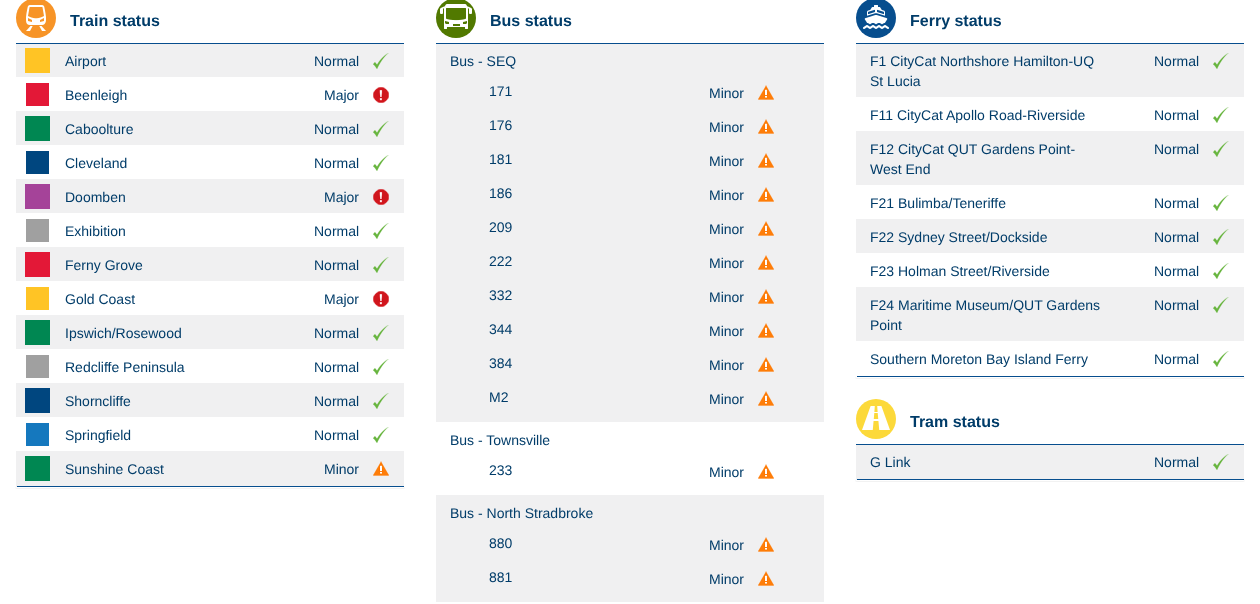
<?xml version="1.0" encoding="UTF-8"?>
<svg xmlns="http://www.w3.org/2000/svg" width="1260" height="604">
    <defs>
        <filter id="blur1" x="-50%" y="-200%" width="200%" height="500%"><feGaussianBlur stdDeviation="0.5"/></filter>
    </defs>
    <rect width="100%" height="100%" fill="#FFFFFF"/>
    <rect x="15" y="-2" width="390" height="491" rx="2" fill="#000000" fill-opacity="0.05" filter="url(#blur1)"/>
    <rect x="15" y="-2" width="390" height="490" rx="2" fill="#FFFFFF"/>
    <circle cx="36" cy="18" r="20" fill="#F79427"/>
    <image x="26" y="5" width="20" height="26" href="img_01.png"/>
    <text x="70" y="26" font-family="Liberation Sans" font-size="16" font-weight="700" fill="#003C69">Train status</text>
    <rect x="16" y="44" width="388" height="33" fill="#F0F0F1"/>
    <rect x="16" y="43" width="388" height="1" fill="#074E8E"/>
    <rect x="25" y="48" width="25" height="25" fill="#FFC425"/>
    <text x="65" y="66" font-family="Liberation Sans" font-size="14" fill="#003C69">Airport</text>
    <image x="373" y="53" width="16" height="16" href="img_02.png"/>
    <text x="314" y="66" font-family="Liberation Sans" font-size="14" fill="#003C69">Normal</text>
    <rect x="26" y="83" width="23" height="23" fill="#E31837"/>
    <text x="65" y="100" font-family="Liberation Sans" font-size="14" fill="#003C69">Beenleigh</text>
    <image x="373" y="87" width="16" height="16" href="img_03.png"/>
    <text x="324" y="100" font-family="Liberation Sans" font-size="14" fill="#003C69">Major</text>
    <rect x="16" y="111" width="388" height="34" fill="#F0F0F1"/>
    <rect x="25" y="116" width="25" height="25" fill="#008752"/>
    <text x="65" y="134" font-family="Liberation Sans" font-size="14" fill="#003C69">Caboolture</text>
    <image x="373" y="121" width="16" height="16" href="img_02.png"/>
    <text x="314" y="134" font-family="Liberation Sans" font-size="14" fill="#003C69">Normal</text>
    <rect x="26" y="151" width="23" height="23" fill="#00467F"/>
    <text x="65" y="168" font-family="Liberation Sans" font-size="14" fill="#003C69">Cleveland</text>
    <image x="373" y="155" width="16" height="16" href="img_04.png"/>
    <text x="314" y="168" font-family="Liberation Sans" font-size="14" fill="#003C69">Normal</text>
    <rect x="16" y="179" width="388" height="34" fill="#F0F0F1"/>
    <rect x="25" y="184" width="25" height="25" fill="#A54399"/>
    <text x="65" y="202" font-family="Liberation Sans" font-size="14" fill="#003C69">Doomben</text>
    <image x="373" y="189" width="16" height="16" href="img_05.png"/>
    <text x="324" y="202" font-family="Liberation Sans" font-size="14" fill="#003C69">Major</text>
    <rect x="26" y="219" width="23" height="23" fill="#A0A0A0"/>
    <text x="65" y="236" font-family="Liberation Sans" font-size="14" fill="#003C69">Exhibition</text>
    <image x="373" y="223" width="16" height="16" href="img_04.png"/>
    <text x="314" y="236" font-family="Liberation Sans" font-size="14" fill="#003C69">Normal</text>
    <rect x="16" y="247" width="388" height="34" fill="#F0F0F1"/>
    <rect x="25" y="252" width="25" height="25" fill="#E31837"/>
    <text x="65" y="270" font-family="Liberation Sans" font-size="14" fill="#003C69">Ferny Grove</text>
    <image x="373" y="257" width="16" height="16" href="img_02.png"/>
    <text x="314" y="270" font-family="Liberation Sans" font-size="14" fill="#003C69">Normal</text>
    <rect x="26" y="287" width="23" height="23" fill="#FFC425"/>
    <text x="65" y="304" font-family="Liberation Sans" font-size="14" fill="#003C69">Gold Coast</text>
    <image x="373" y="291" width="16" height="16" href="img_03.png"/>
    <text x="324" y="304" font-family="Liberation Sans" font-size="14" fill="#003C69">Major</text>
    <rect x="16" y="315" width="388" height="34" fill="#F0F0F1"/>
    <rect x="25" y="320" width="25" height="25" fill="#008752"/>
    <text x="65" y="338" font-family="Liberation Sans" font-size="14" fill="#003C69">Ipswich/Rosewood</text>
    <image x="373" y="325" width="16" height="16" href="img_02.png"/>
    <text x="314" y="338" font-family="Liberation Sans" font-size="14" fill="#003C69">Normal</text>
    <rect x="26" y="355" width="23" height="23" fill="#A0A0A0"/>
    <text x="65" y="372" font-family="Liberation Sans" font-size="14" fill="#003C69">Redcliffe Peninsula</text>
    <image x="373" y="359" width="16" height="16" href="img_04.png"/>
    <text x="314" y="372" font-family="Liberation Sans" font-size="14" fill="#003C69">Normal</text>
    <rect x="16" y="383" width="388" height="34" fill="#F0F0F1"/>
    <rect x="25" y="388" width="25" height="25" fill="#00467F"/>
    <text x="65" y="406" font-family="Liberation Sans" font-size="14" fill="#003C69">Shorncliffe</text>
    <image x="373" y="393" width="16" height="16" href="img_02.png"/>
    <text x="314" y="406" font-family="Liberation Sans" font-size="14" fill="#003C69">Normal</text>
    <rect x="26" y="423" width="23" height="23" fill="#1578BE"/>
    <text x="65" y="440" font-family="Liberation Sans" font-size="14" fill="#003C69">Springfield</text>
    <image x="373" y="427" width="16" height="16" href="img_04.png"/>
    <text x="314" y="440" font-family="Liberation Sans" font-size="14" fill="#003C69">Normal</text>
    <path d="M 16 451 H 404 V 486 C 404 486.5 403.5 487 403 487 H 17 C 16.5 487 16 486.5 16 486 Z" fill="#F0F0F1"/>
    <rect x="17" y="486" width="387" height="1" fill="#074E8E"/>
    <rect x="25" y="456" width="25" height="25" fill="#008752"/>
    <text x="65" y="474" font-family="Liberation Sans" font-size="14" fill="#003C69">Sunshine Coast</text>
    <image x="373" y="461" width="16" height="15" href="img_06.png"/>
    <text x="324" y="474" font-family="Liberation Sans" font-size="14" fill="#003C69">Minor</text>
    <circle cx="456" cy="18" r="20" fill="#517900"/>
    <image x="440" y="4" width="32" height="25" href="img_07.png"/>
    <text x="490" y="26" font-family="Liberation Sans" font-size="16" font-weight="700" fill="#003C69">Bus status</text>
    <rect x="436" y="44" width="388" height="378" fill="#F0F0F1"/>
    <rect x="436" y="43" width="388" height="1" fill="#074E8E"/>
    <text x="450" y="66" font-family="Liberation Sans" font-size="14" fill="#003C69">Bus - SEQ</text>
    <text x="489" y="96" font-family="Liberation Sans" font-size="14" fill="#003C69">171</text>
    <image x="758" y="85" width="16" height="15" href="img_06.png"/>
    <text x="709" y="98" font-family="Liberation Sans" font-size="14" fill="#003C69">Minor</text>
    <text x="489" y="130" font-family="Liberation Sans" font-size="14" fill="#003C69">176</text>
    <image x="758" y="119" width="16" height="15" href="img_06.png"/>
    <text x="709" y="132" font-family="Liberation Sans" font-size="14" fill="#003C69">Minor</text>
    <text x="489" y="164" font-family="Liberation Sans" font-size="14" fill="#003C69">181</text>
    <image x="758" y="153" width="16" height="15" href="img_06.png"/>
    <text x="709" y="166" font-family="Liberation Sans" font-size="14" fill="#003C69">Minor</text>
    <text x="489" y="198" font-family="Liberation Sans" font-size="14" fill="#003C69">186</text>
    <image x="758" y="187" width="16" height="15" href="img_06.png"/>
    <text x="709" y="200" font-family="Liberation Sans" font-size="14" fill="#003C69">Minor</text>
    <text x="489" y="232" font-family="Liberation Sans" font-size="14" fill="#003C69">209</text>
    <image x="758" y="221" width="16" height="15" href="img_06.png"/>
    <text x="709" y="234" font-family="Liberation Sans" font-size="14" fill="#003C69">Minor</text>
    <text x="489" y="266" font-family="Liberation Sans" font-size="14" fill="#003C69">222</text>
    <image x="758" y="255" width="16" height="15" href="img_06.png"/>
    <text x="709" y="268" font-family="Liberation Sans" font-size="14" fill="#003C69">Minor</text>
    <text x="489" y="300" font-family="Liberation Sans" font-size="14" fill="#003C69">332</text>
    <image x="758" y="289" width="16" height="15" href="img_06.png"/>
    <text x="709" y="302" font-family="Liberation Sans" font-size="14" fill="#003C69">Minor</text>
    <text x="489" y="334" font-family="Liberation Sans" font-size="14" fill="#003C69">344</text>
    <image x="758" y="323" width="16" height="15" href="img_06.png"/>
    <text x="709" y="336" font-family="Liberation Sans" font-size="14" fill="#003C69">Minor</text>
    <text x="489" y="368" font-family="Liberation Sans" font-size="14" fill="#003C69">384</text>
    <image x="758" y="357" width="16" height="15" href="img_06.png"/>
    <text x="709" y="370" font-family="Liberation Sans" font-size="14" fill="#003C69">Minor</text>
    <text x="489" y="402" font-family="Liberation Sans" font-size="14" fill="#003C69">M2</text>
    <image x="758" y="391" width="16" height="15" href="img_06.png"/>
    <text x="709" y="404" font-family="Liberation Sans" font-size="14" fill="#003C69">Minor</text>
    <text x="450" y="445" font-family="Liberation Sans" font-size="14" fill="#003C69">Bus - Townsville</text>
    <text x="489" y="475" font-family="Liberation Sans" font-size="14" fill="#003C69">233</text>
    <image x="758" y="464" width="16" height="15" href="img_08.png"/>
    <text x="709" y="477" font-family="Liberation Sans" font-size="14" fill="#003C69">Minor</text>
    <rect x="436" y="495" width="388" height="107" fill="#F0F0F1"/>
    <text x="450" y="518" font-family="Liberation Sans" font-size="14" fill="#003C69">Bus - North Stradbroke</text>
    <text x="489" y="548" font-family="Liberation Sans" font-size="14" fill="#003C69">880</text>
    <image x="758" y="537" width="16" height="15" href="img_06.png"/>
    <text x="709" y="550" font-family="Liberation Sans" font-size="14" fill="#003C69">Minor</text>
    <text x="489" y="582" font-family="Liberation Sans" font-size="14" fill="#003C69">881</text>
    <image x="758" y="571" width="16" height="15" href="img_06.png"/>
    <text x="709" y="584" font-family="Liberation Sans" font-size="14" fill="#003C69">Minor</text>
    <rect x="855" y="-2" width="390" height="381" rx="2" fill="#000000" fill-opacity="0.05" filter="url(#blur1)"/>
    <rect x="855" y="-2" width="390" height="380" rx="2" fill="#FFFFFF"/>
    <circle cx="876" cy="18" r="20" fill="#074E8E"/>
    <image x="863" y="5" width="26" height="24" href="img_09.png"/>
    <text x="910" y="26" font-family="Liberation Sans" font-size="16" font-weight="700" fill="#003C69">Ferry status</text>
    <rect x="856" y="44" width="388" height="53" fill="#F0F0F1"/>
    <rect x="856" y="43" width="388" height="1" fill="#074E8E"/>
    <text font-family="Liberation Sans" font-size="14" fill="#003C69">
        <tspan x="870" y="66">F1 CityCat Northshore Hamilton-UQ</tspan>
        <tspan x="870" y="86">St Lucia</tspan>
    </text>
    <image x="1213" y="53" width="16" height="16" href="img_02.png"/>
    <text x="1154" y="66" font-family="Liberation Sans" font-size="14" fill="#003C69">Normal</text>
    <text x="870" y="120" font-family="Liberation Sans" font-size="14" fill="#003C69">F11 CityCat Apollo Road-Riverside</text>
    <image x="1213" y="107" width="16" height="16" href="img_04.png"/>
    <text x="1154" y="120" font-family="Liberation Sans" font-size="14" fill="#003C69">Normal</text>
    <rect x="856" y="131" width="388" height="54" fill="#F0F0F1"/>
    <text font-family="Liberation Sans" font-size="14" fill="#003C69">
        <tspan x="870" y="154">F12 CityCat QUT Gardens Point-</tspan>
        <tspan x="870" y="174">West End</tspan>
    </text>
    <image x="1213" y="141" width="16" height="16" href="img_02.png"/>
    <text x="1154" y="154" font-family="Liberation Sans" font-size="14" fill="#003C69">Normal</text>
    <text x="870" y="208" font-family="Liberation Sans" font-size="14" fill="#003C69">F21 Bulimba/Teneriffe</text>
    <image x="1213" y="195" width="16" height="16" href="img_04.png"/>
    <text x="1154" y="208" font-family="Liberation Sans" font-size="14" fill="#003C69">Normal</text>
    <rect x="856" y="219" width="388" height="34" fill="#F0F0F1"/>
    <text x="870" y="242" font-family="Liberation Sans" font-size="14" fill="#003C69">F22 Sydney Street/Dockside</text>
    <image x="1213" y="229" width="16" height="16" href="img_02.png"/>
    <text x="1154" y="242" font-family="Liberation Sans" font-size="14" fill="#003C69">Normal</text>
    <text x="870" y="276" font-family="Liberation Sans" font-size="14" fill="#003C69">F23 Holman Street/Riverside</text>
    <image x="1213" y="263" width="16" height="16" href="img_04.png"/>
    <text x="1154" y="276" font-family="Liberation Sans" font-size="14" fill="#003C69">Normal</text>
    <rect x="856" y="287" width="388" height="54" fill="#F0F0F1"/>
    <text font-family="Liberation Sans" font-size="14" fill="#003C69">
        <tspan x="870" y="310">F24 Maritime Museum/QUT Gardens</tspan>
        <tspan x="870" y="330">Point</tspan>
    </text>
    <image x="1213" y="297" width="16" height="16" href="img_02.png"/>
    <text x="1154" y="310" font-family="Liberation Sans" font-size="14" fill="#003C69">Normal</text>
    <rect x="857" y="376" width="387" height="1" fill="#074E8E"/>
    <text x="870" y="364" font-family="Liberation Sans" font-size="14" fill="#003C69">Southern Moreton Bay Island Ferry</text>
    <image x="1213" y="351" width="16" height="16" href="img_04.png"/>
    <text x="1154" y="364" font-family="Liberation Sans" font-size="14" fill="#003C69">Normal</text>
    <rect x="855" y="399" width="390" height="83" rx="2" fill="#000000" fill-opacity="0.05" filter="url(#blur1)"/>
    <rect x="855" y="398" width="390" height="83" rx="2" fill="#FFFFFF"/>
    <circle cx="876" cy="419" r="20" fill="#FCD93A"/>
    <image x="862" y="406" width="28" height="24" href="img_10.png"/>
    <text x="910" y="427" font-family="Liberation Sans" font-size="16" font-weight="700" fill="#003C69">Tram status</text>
    <path d="M 856 444 H 1244 V 479 C 1244 479.5 1243.5 480 1243 480 H 857 C 856.5 480 856 479.5 856 479 Z" fill="#F0F0F1"/>
    <rect x="856" y="444" width="388" height="1" fill="#074E8E"/>
    <rect x="857" y="479" width="387" height="1" fill="#074E8E"/>
    <text x="870" y="467" font-family="Liberation Sans" font-size="14" fill="#003C69">G Link</text>
    <image x="1213" y="454" width="16" height="16" href="img_02.png"/>
    <text x="1154" y="467" font-family="Liberation Sans" font-size="14" fill="#003C69">Normal</text>
</svg>
